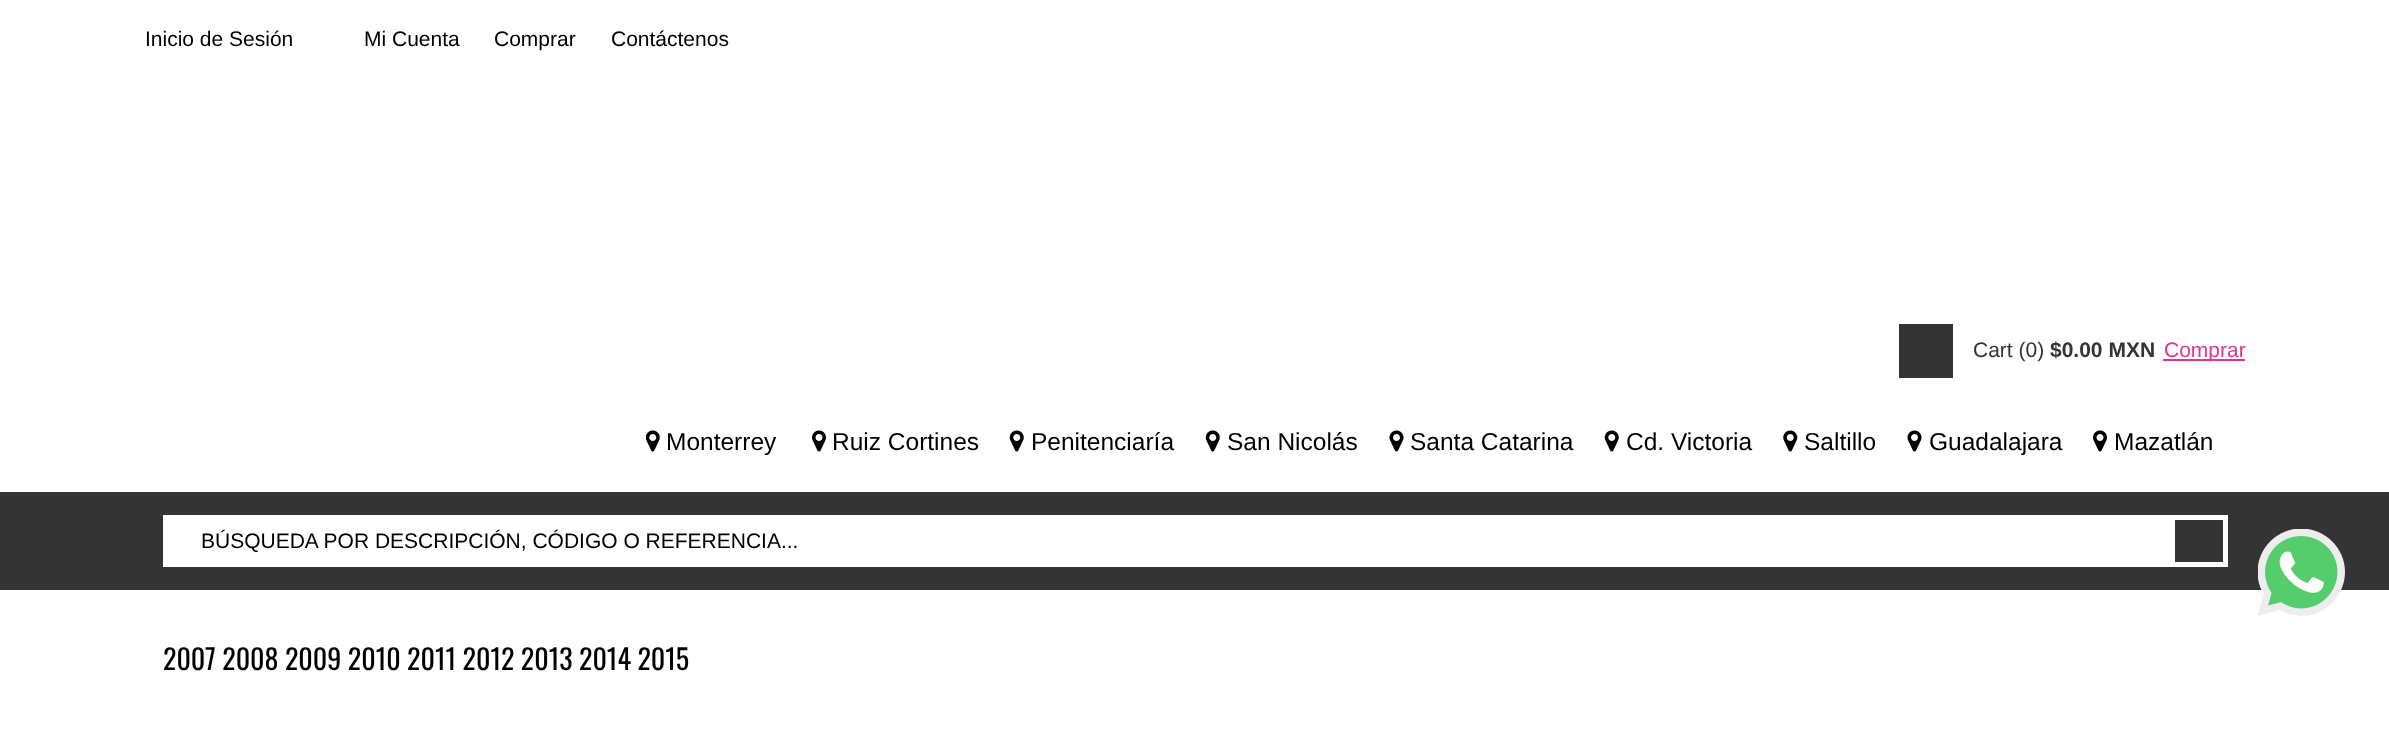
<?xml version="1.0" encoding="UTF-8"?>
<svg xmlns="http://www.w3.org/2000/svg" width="2389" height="735">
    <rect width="100%" height="100%" fill="#FFFFFF"/>
    <text x="145" y="46" font-family="Liberation Sans" font-size="21" fill="#000000">Inicio de Sesión</text>
    <text x="364" y="46" font-family="Liberation Sans" font-size="21" fill="#000000">Mi Cuenta</text>
    <text x="494" y="46" font-family="Liberation Sans" font-size="21" fill="#000000">Comprar</text>
    <text x="611" y="46" font-family="Liberation Sans" font-size="21" fill="#000000">Contáctenos</text>
    <rect x="1899" y="324" width="54" height="54" fill="#333333"/>
    <text x="1973" y="357" font-family="Liberation Sans" font-size="21" fill="#343434">Cart (0)</text>
    <text x="2050" y="357" font-family="Liberation Sans" font-size="21" font-weight="700" fill="#343434">$0.00 MXN</text>
    <rect x="2163" y="359" width="82" height="2" fill="#E53590"/>
    <text x="2164" y="357" font-family="Liberation Sans" font-size="21" fill="#E53590">Comprar</text>
    <image x="646" y="430" width="14" height="22" href="img_01.png"/>
    <text x="666" y="450" font-family="Liberation Sans" font-size="24.5" fill="#000000">Monterrey</text>
    <image x="812" y="430" width="14" height="22" href="img_02.png"/>
    <text x="832" y="450" font-family="Liberation Sans" font-size="24.5" fill="#000000">Ruiz Cortines</text>
    <image x="1009" y="430" width="15" height="22" href="img_03.png"/>
    <text x="1031" y="450" font-family="Liberation Sans" font-size="24.5" fill="#000000">Penitenciaría</text>
    <image x="1205" y="430" width="15" height="22" href="img_03.png"/>
    <text x="1227" y="450" font-family="Liberation Sans" font-size="24.5" fill="#000000">San Nicolás</text>
    <image x="1389" y="430" width="15" height="22" href="img_04.png"/>
    <text x="1410" y="450" font-family="Liberation Sans" font-size="24.5" fill="#000000">Santa Catarina</text>
    <image x="1604" y="430" width="15" height="22" href="img_03.png"/>
    <text x="1626" y="450" font-family="Liberation Sans" font-size="24.5" fill="#000000">Cd. Victoria</text>
    <image x="1783" y="430" width="15" height="22" href="img_05.png"/>
    <text x="1804" y="450" font-family="Liberation Sans" font-size="24.5" fill="#000000">Saltillo</text>
    <image x="1907" y="430" width="15" height="22" href="img_04.png"/>
    <text x="1929" y="450" font-family="Liberation Sans" font-size="24.5" fill="#000000">Guadalajara</text>
    <image x="2093" y="430" width="14" height="22" href="img_02.png"/>
    <text x="2114" y="450" font-family="Liberation Sans" font-size="24.5" fill="#000000">Mazatlán</text>
    <rect x="0" y="492" width="2389" height="98" fill="#343434"/>
    <rect x="163" y="515" width="2065" height="52" fill="#FFFFFF"/>
    <text x="201" y="548" font-family="Liberation Sans" font-size="21" fill="#000000">BÚSQUEDA POR DESCRIPCIÓN, CÓDIGO O REFERENCIA...</text>
    <rect x="2175" y="520" width="48" height="42" fill="#333333"/>
    <image x="2258" y="529" width="87" height="87" href="img_06.png"/>
    <text x="163" y="670" font-family="Oswald" font-size="28" fill="#000000">2007 2008 2009 2010 2011 2012 2013 2014 2015</text>
</svg>
